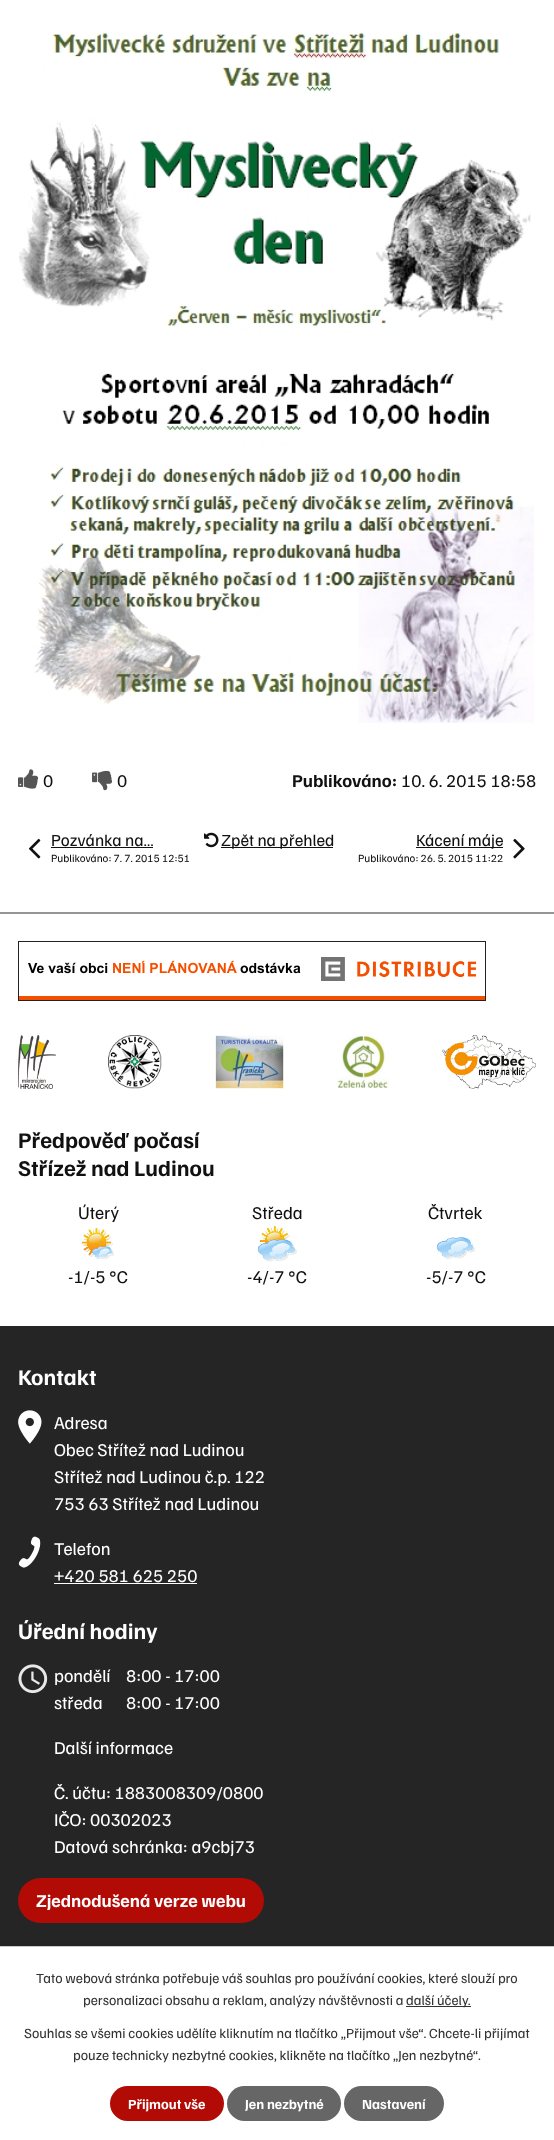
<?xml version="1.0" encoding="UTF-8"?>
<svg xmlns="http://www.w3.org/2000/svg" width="554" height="2140">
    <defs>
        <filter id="blur1" x="-50%" y="-200%" width="200%" height="500%"><feGaussianBlur stdDeviation="2.5"/></filter>
    </defs>
    <rect width="100%" height="100%" fill="#FFFFFF"/>
    <image x="19" y="31" width="515" height="692" href="img_01.png"/>
    <image x="18" y="769" width="21" height="20" href="img_02.png"/>
    <text x="43" y="787" font-family="Familjen Grotesk" font-size="18" fill="#111111">0</text>
    <image x="92" y="770" width="21" height="21" href="img_03.png"/>
    <text x="117" y="787" font-family="Familjen Grotesk" font-size="18" fill="#111111">0</text>
    <text x="292" y="787" font-family="Familjen Grotesk" font-size="18" font-weight="700" fill="#111111">Publikováno:</text>
    <text x="401" y="787" font-family="Familjen Grotesk" font-size="18" fill="#111111">10. 6. 2015 18:58</text>
    <image x="28" y="838" width="13" height="21" href="img_04.png"/>
    <text x="51" y="846" font-family="Familjen Grotesk" font-size="17" fill="#111111">Pozvánka na…</text>
    <rect x="51" y="847" width="102" height="1" fill="#111111"/>
    <text x="51" y="862" font-family="Familjen Grotesk" font-size="11" fill="#111111">Publikováno: 7. 7. 2015 12:51</text>
    <image x="204" y="832" width="15" height="16" href="img_05.png"/>
    <rect x="221" y="847" width="112" height="1" fill="#111111"/>
    <text x="221" y="846" font-family="Familjen Grotesk" font-size="17" fill="#111111">Zpět na přehled</text>
    <rect x="416" y="847" width="87" height="1" fill="#111111"/>
    <text x="416" y="846" font-family="Familjen Grotesk" font-size="17" fill="#111111">Kácení máje</text>
    <text x="358" y="862" font-family="Familjen Grotesk" font-size="11" fill="#111111">Publikováno: 26. 5. 2015 11:22</text>
    <image x="513" y="838" width="12" height="21" href="img_06.png"/>
    <rect x="0" y="1326" width="554" height="620" fill="#252525"/>
    <rect x="0" y="912" width="554" height="2" fill="#959595"/>
    <image x="18" y="941" width="468" height="60" href="img_07.png"/>
    <image x="18" y="1035" width="38" height="54" href="img_08.png"/>
    <image x="108" y="1035" width="54" height="54" href="img_09.png"/>
    <image x="215" y="1035" width="69" height="54" href="img_10.png"/>
    <image x="337" y="1036" width="52" height="52" href="img_11.png"/>
    <image x="442" y="1035" width="94" height="54" href="img_12.png"/>
    <text font-family="Familjen Grotesk" font-size="22.5" font-weight="700" fill="#111111">
        <tspan x="18" y="1148">Předpověď počasí</tspan>
        <tspan x="18" y="1176">Střízež nad Ludinou</tspan>
    </text>
    <text x="78" y="1219" font-family="Familjen Grotesk" font-size="18" fill="#111111">Úterý</text>
    <image x="81" y="1227" width="33" height="32" href="img_13.png"/>
    <text x="68" y="1283" font-family="Familjen Grotesk" font-size="18" fill="#111111">-1/-5 °C</text>
    <text x="252" y="1219" font-family="Familjen Grotesk" font-size="18" fill="#111111">Středa</text>
    <image x="257" y="1226" width="40" height="36" href="img_14.png"/>
    <text x="247" y="1283" font-family="Familjen Grotesk" font-size="18" fill="#111111">-4/-7 °C</text>
    <text x="428" y="1219" font-family="Familjen Grotesk" font-size="18" fill="#111111">Čtvrtek</text>
    <image x="436" y="1237" width="39" height="22" href="img_15.png"/>
    <text x="426" y="1283" font-family="Familjen Grotesk" font-size="18" fill="#111111">-5/-7 °C</text>
    <text x="18" y="1385" font-family="Familjen Grotesk" font-size="22.5" font-weight="700" fill="#FFFFFF">Kontakt</text>
    <image x="18" y="1410" width="24" height="34" href="img_16.png"/>
    <text font-family="Familjen Grotesk" font-size="18" fill="#FFFFFF">
        <tspan x="54" y="1429">Adresa</tspan>
        <tspan x="54" y="1456">Obec Střítež nad Ludinou</tspan>
        <tspan x="54" y="1483">Střítež nad Ludinou č.p. 122</tspan>
        <tspan x="54" y="1510">753 63 Střítež nad Ludinou</tspan>
    </text>
    <image x="18" y="1536" width="23" height="32" href="img_17.png"/>
    <text font-family="Familjen Grotesk" font-size="18" fill="#FFFFFF">
        <tspan x="54" y="1555">Telefon</tspan>
        <tspan x="54" y="1582">+420 581 625 250</tspan>
    </text>
    <rect x="54" y="1583" width="143" height="1" fill="#FFFFFF"/>
    <text x="18" y="1639" font-family="Familjen Grotesk" font-size="22.5" font-weight="700" fill="#FFFFFF">Úřední hodiny</text>
    <image x="18" y="1664" width="30" height="30" href="img_18.png"/>
    <text x="54" y="1682" font-family="Familjen Grotesk" font-size="18" fill="#FFFFFF">pondělí</text>
    <text x="126" y="1682" font-family="Familjen Grotesk" font-size="18" fill="#FFFFFF">8:00 - 17:00</text>
    <text x="54" y="1709" font-family="Familjen Grotesk" font-size="18" fill="#FFFFFF">středa</text>
    <text x="126" y="1709" font-family="Familjen Grotesk" font-size="18" fill="#FFFFFF">8:00 - 17:00</text>
    <text x="54" y="1754" font-family="Familjen Grotesk" font-size="18" fill="#FFFFFF">Další informace</text>
    <text font-family="Familjen Grotesk" font-size="18" fill="#FFFFFF">
        <tspan x="54" y="1799">Č. účtu: 1883008309/0800</tspan>
        <tspan x="54" y="1826">IČO: 00302023</tspan>
        <tspan x="54" y="1853">Datová schránka: a9cbj73</tspan>
    </text>
    <rect x="18" y="1878" width="246" height="45" rx="22.5" fill="#B20B06"/>
    <text x="36" y="1907" font-family="Familjen Grotesk" font-size="18" font-weight="700" fill="#FFFFFF">Zjednodušená verze webu</text>
    <rect x="0" y="1946" width="554" height="194" fill="#000000" fill-opacity="0.2" filter="url(#blur1)"/>
    <rect x="0" y="1947" width="554" height="193" fill="#FFFFFF"/>
    <rect x="0" y="1946" width="554" height="1" fill="#CCCCCC"/>
    <text x="36" y="1983" font-family="Familjen Grotesk" font-size="14" fill="#333333">Tato webová stránka potřebuje váš souhlas pro používání cookies, které slouží pro</text>
    <text x="83" y="2005" font-family="Familjen Grotesk" font-size="14" fill="#333333">personalizaci obsahu a reklam, analýzy návštěvnosti a</text>
    <rect x="406" y="2006" width="65" height="1" fill="#333333"/>
    <text x="406" y="2005" font-family="Familjen Grotesk" font-size="14" fill="#333333">další účely.</text>
    <text x="24" y="2038" font-family="Familjen Grotesk" font-size="14" fill="#333333">Souhlas se všemi cookies udělíte kliknutím na tlačítko „Přijmout vše“. Chcete-li přijímat</text>
    <text x="73" y="2060" font-family="Familjen Grotesk" font-size="14" fill="#333333">pouze technicky nezbytné cookies, klikněte na tlačítko „Jen nezbytné“.</text>
    <rect x="110" y="2086" width="114" height="35" rx="17.5" fill="#B20B06"/>
    <text x="128" y="2109" font-family="Familjen Grotesk" font-size="14" font-weight="700" fill="#FFFFFF">Přijmout vše</text>
    <rect x="227" y="2086" width="114" height="35" rx="17.5" fill="#666666"/>
    <text x="245" y="2109" font-family="Familjen Grotesk" font-size="14" font-weight="700" fill="#FFFFFF">Jen nezbytné</text>
    <rect x="344" y="2086" width="100" height="35" rx="17.5" fill="#666666"/>
    <text x="362" y="2109" font-family="Familjen Grotesk" font-size="14" font-weight="700" fill="#FFFFFF">Nastavení</text>
</svg>
